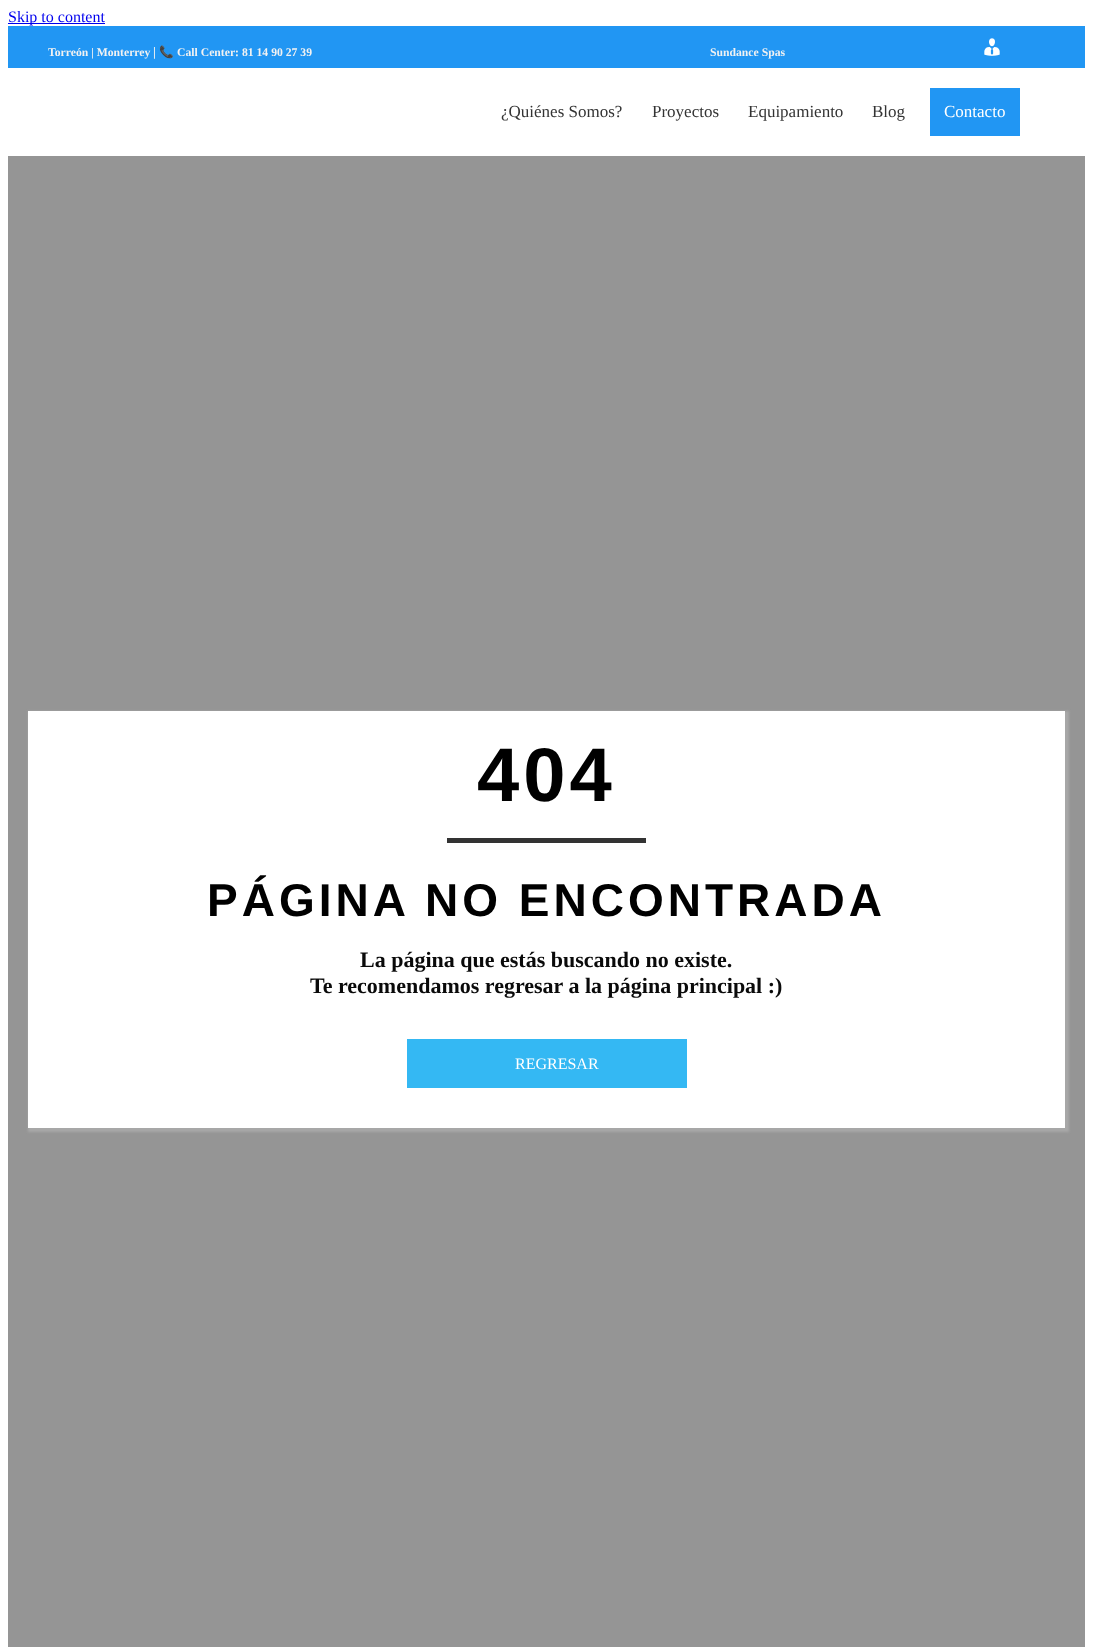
<?xml version="1.0" encoding="UTF-8"?>
<svg xmlns="http://www.w3.org/2000/svg" width="1093" height="1647">
    <defs>
        <filter id="blur1" x="-50%" y="-200%" width="200%" height="500%"><feGaussianBlur stdDeviation="1"/></filter>
    </defs>
    <rect width="100%" height="100%" fill="#FFFFFF"/>
    <rect x="8" y="23" width="97" height="1" fill="#0000EE"/>
    <text x="8" y="22" font-family="Liberation Serif" font-size="16" fill="#0000EE">Skip to content</text>
    <rect x="8" y="26" width="1077" height="42" fill="#2196F3"/>
    <text x="48" y="56" font-family="Liberation Serif" font-size="11.7" font-weight="700" fill="#F2F2F2">Torreón | Monterrey</text>
    <text x="153" y="56" font-family="Liberation Serif" font-size="13" font-weight="700" fill="#F2F2F2">|</text>
    <text x="159" y="56" font-family="Noto Color Emoji" font-size="11.7" font-weight="700" fill="#F2F2F2">📞</text>
    <text x="177" y="56" font-family="Liberation Serif" font-size="11.7" font-weight="700" fill="#F2F2F2">Call Center: 81 14 90 27 39</text>
    <text x="710" y="56" font-family="Liberation Serif" font-size="11.7" font-weight="700" fill="#F2F2F2">Sundance Spas</text>
    <image x="984" y="38" width="16" height="18" href="img_01.png"/>
    <text x="501" y="117" font-family="Liberation Serif" font-size="17" fill="#333333">¿Quiénes Somos?</text>
    <text x="652" y="117" font-family="Liberation Serif" font-size="17" fill="#333333">Proyectos</text>
    <text x="748" y="117" font-family="Liberation Serif" font-size="17" fill="#333333">Equipamiento</text>
    <text x="872" y="117" font-family="Liberation Serif" font-size="17" fill="#333333">Blog</text>
    <rect x="930" y="88" width="90" height="48" fill="#2196F3"/>
    <text x="944" y="117" font-family="Liberation Serif" font-size="17" fill="#FFFFFF">Contacto</text>
    <rect x="8" y="156" width="1077" height="1491" fill="#959595"/>
    <rect x="28" y="711" width="1041" height="421" fill="#BABABA" fill-opacity="0.5" filter="url(#blur1)"/>
    <rect x="28" y="711" width="1037" height="417" fill="#FFFFFF"/>
    <text x="477" y="801" font-family="Liberation Sans" font-size="76" font-weight="700" letter-spacing="4" fill="#000000">404</text>
    <rect x="447" y="838" width="199" height="5" fill="#333333"/>
    <text x="207" y="916" font-family="Liberation Sans" font-size="46" font-weight="700" letter-spacing="4" fill="#000000">PÁGINA NO ENCONTRADA</text>
    <text x="360" y="967" font-family="Liberation Serif" font-size="22" font-weight="700" fill="#0A0A0A">La página que estás buscando no existe.</text>
    <text x="310" y="993" font-family="Liberation Serif" font-size="22" font-weight="700" fill="#0A0A0A">Te recomendamos regresar a la página principal :)</text>
    <rect x="407" y="1039" width="280" height="49" fill="#34B8F3"/>
    <text x="515" y="1069" font-family="Liberation Serif" font-size="16" fill="#FFFFFF">REGRESAR</text>
</svg>
